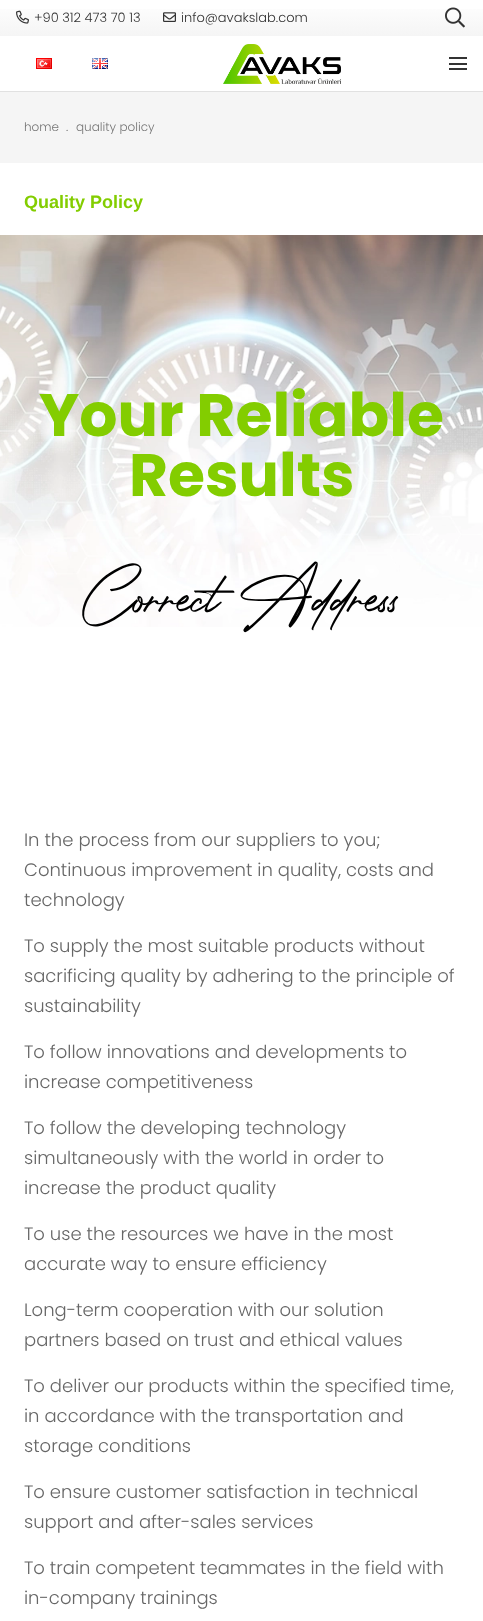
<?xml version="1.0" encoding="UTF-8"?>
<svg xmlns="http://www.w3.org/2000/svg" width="483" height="1621">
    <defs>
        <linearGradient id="g1" gradientUnits="userSpaceOnUse" x1="242" y1="36" x2="242" y2="0"><stop offset="0" stop-color="#F5F5F5"/><stop offset="1" stop-color="#FFFFFF"/></linearGradient>
    </defs>
    <rect width="100%" height="100%" fill="#FFFFFF"/>
    <rect x="0" y="9" width="483" height="27" fill="url(#g1)"/>
    <image x="16" y="10" width="13" height="14" href="img_01.png"/>
    <text x="34" y="22" font-family="Poppins" font-size="13" font-weight="300" fill="#333333">+90 312 473 70 13</text>
    <image x="163" y="12" width="13" height="10" href="img_02.png"/>
    <text x="181" y="22" font-family="Poppins" font-size="13" font-weight="300" fill="#333333">info@avakslab.com</text>
    <image x="445" y="7" width="20" height="21" href="img_03.png"/>
    <rect x="0" y="91" width="483" height="1" fill="#E1E1E1"/>
    <image x="36" y="58" width="16" height="11" href="img_04.png"/>
    <image x="92" y="58" width="16" height="11" href="img_05.png"/>
    <image x="223" y="44" width="118" height="40" href="img_06.png"/>
    <rect x="449" y="63" width="18" height="2" fill="#333333"/>
    <rect x="449" y="57" width="18" height="2" fill="#333333"/>
    <rect x="449" y="68" width="18" height="2" fill="#333333"/>
    <rect x="0" y="92" width="483" height="71" fill="#F5F5F5"/>
    <text x="24" y="131" font-family="Poppins" font-size="12" font-weight="300" fill="#767676">home</text>
    <text x="66" y="131" font-family="Poppins" font-size="12" font-weight="300" fill="#767676">.</text>
    <text x="76" y="131" font-family="Poppins" font-size="12" font-weight="300" fill="#767676">quality policy</text>
    <text x="24" y="208" font-family="Liberation Sans" font-size="18" font-weight="700" fill="#83CD00">Quality Policy</text>
    <image x="0" y="235" width="483" height="392" href="img_07.png"/>
    <text x="39" y="436" font-family="Poppins" font-size="60" font-weight="700" fill="#83CD00">Your Reliable</text>
    <text x="129" y="496" font-family="Poppins" font-size="60" font-weight="700" fill="#83CD00">Results</text>
    <text x="82" y="621" font-family="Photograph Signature" font-size="60" fill="#000000">Correct Address</text>
    <text font-family="Poppins" font-size="18" font-weight="300" fill="#666666">
        <tspan x="24" y="846">In the process from our suppliers to you;</tspan>
        <tspan x="24" y="876">Continuous improvement in quality, costs and</tspan>
        <tspan x="24" y="906">technology</tspan>
    </text>
    <text font-family="Poppins" font-size="18" font-weight="300" fill="#666666">
        <tspan x="24" y="952">To supply the most suitable products without</tspan>
        <tspan x="24" y="982">sacrificing quality by adhering to the principle of</tspan>
        <tspan x="24" y="1012">sustainability</tspan>
    </text>
    <text font-family="Poppins" font-size="18" font-weight="300" fill="#666666">
        <tspan x="24" y="1058">To follow innovations and developments to</tspan>
        <tspan x="24" y="1088">increase competitiveness</tspan>
    </text>
    <text font-family="Poppins" font-size="18" font-weight="300" fill="#666666">
        <tspan x="24" y="1134">To follow the developing technology</tspan>
        <tspan x="24" y="1164">simultaneously with the world in order to</tspan>
        <tspan x="24" y="1194">increase the product quality</tspan>
    </text>
    <text font-family="Poppins" font-size="18" font-weight="300" fill="#666666">
        <tspan x="24" y="1240">To use the resources we have in the most</tspan>
        <tspan x="24" y="1270">accurate way to ensure efficiency</tspan>
    </text>
    <text font-family="Poppins" font-size="18" font-weight="300" fill="#666666">
        <tspan x="24" y="1316">Long-term cooperation with our solution</tspan>
        <tspan x="24" y="1346">partners based on trust and ethical values</tspan>
    </text>
    <text font-family="Poppins" font-size="18" font-weight="300" fill="#666666">
        <tspan x="24" y="1392">To deliver our products within the specified time,</tspan>
        <tspan x="24" y="1422">in accordance with the transportation and</tspan>
        <tspan x="24" y="1452">storage conditions</tspan>
    </text>
    <text font-family="Poppins" font-size="18" font-weight="300" fill="#666666">
        <tspan x="24" y="1498">To ensure customer satisfaction in technical</tspan>
        <tspan x="24" y="1528">support and after-sales services</tspan>
    </text>
    <text font-family="Poppins" font-size="18" font-weight="300" fill="#666666">
        <tspan x="24" y="1574">To train competent teammates in the field with</tspan>
        <tspan x="24" y="1604">in-company trainings</tspan>
    </text>
</svg>
